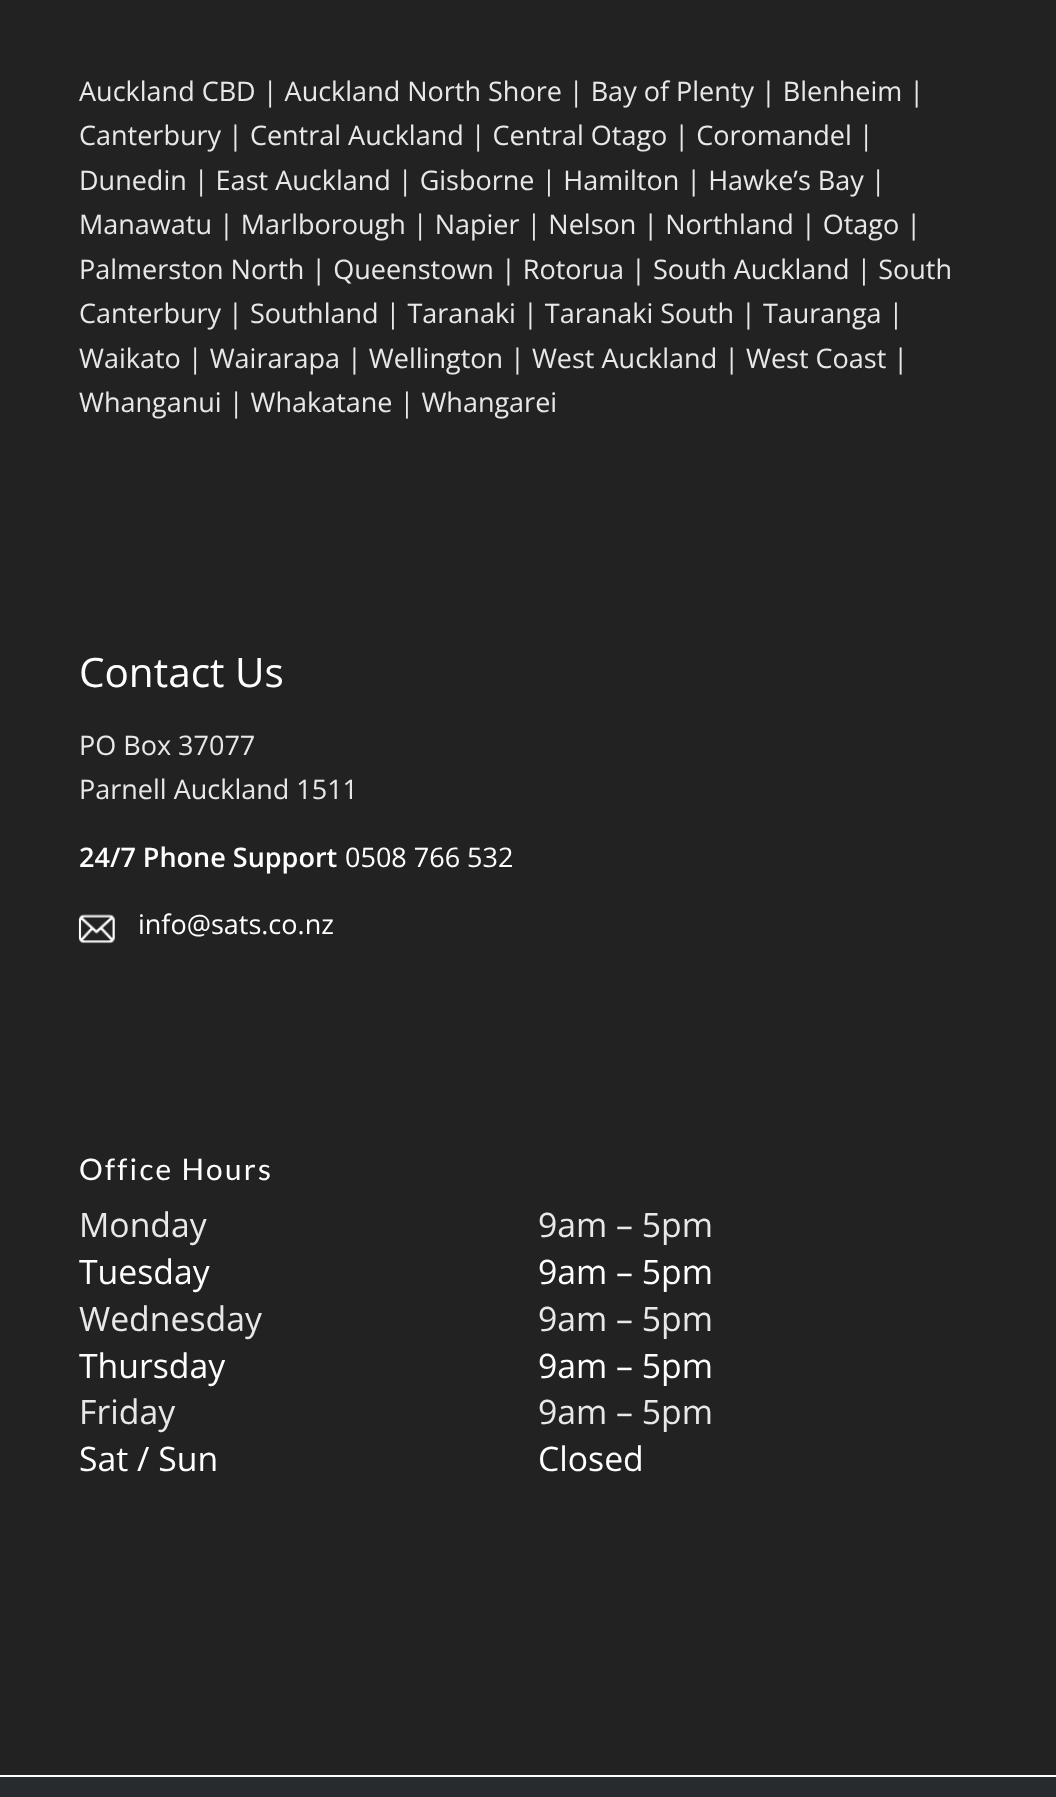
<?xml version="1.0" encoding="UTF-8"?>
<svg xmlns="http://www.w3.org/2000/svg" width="1056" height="1797">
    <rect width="100%" height="100%" fill="#222222"/>
    <text font-family="Open Sans" font-size="27" fill="#E8E8E8">
        <tspan x="79" y="101">Auckland CBD | Auckland North Shore | Bay of Plenty | Blenheim |</tspan>
        <tspan x="79" y="145">Canterbury | Central Auckland | Central Otago | Coromandel |</tspan>
        <tspan x="79" y="190">Dunedin | East Auckland | Gisborne | Hamilton | Hawke’s Bay |</tspan>
        <tspan x="79" y="234">Manawatu | Marlborough | Napier | Nelson | Northland | Otago |</tspan>
        <tspan x="79" y="279">Palmerston North | Queenstown | Rotorua | South Auckland | South</tspan>
        <tspan x="79" y="323">Canterbury | Southland | Taranaki | Taranaki South | Tauranga |</tspan>
        <tspan x="79" y="368">Waikato | Wairarapa | Wellington | West Auckland | West Coast |</tspan>
        <tspan x="79" y="412">Whanganui | Whakatane | Whangarei</tspan>
    </text>
    <text x="79" y="687" font-family="Open Sans" font-size="40.5" fill="#FFFFFF">Contact Us</text>
    <text font-family="Open Sans" font-size="27" fill="#E8E8E8">
        <tspan x="79" y="755">PO Box 37077</tspan>
        <tspan x="79" y="799">Parnell Auckland 1511</tspan>
    </text>
    <text x="79" y="867" font-family="Open Sans" font-size="27" font-weight="600" fill="#FFFFFF">24/7 Phone Support</text>
    <text x="345" y="867" font-family="Open Sans" font-size="27" fill="#FFFFFF">0508 766 532</text>
    <image x="78" y="914" width="37" height="30" href="img_01.png"/>
    <text x="138" y="934" font-family="Open Sans" font-size="27" fill="#FFFFFF">info@sats.co.nz</text>
    <text x="79" y="1180" font-family="Lato" font-size="29.75" letter-spacing="2.25" fill="#FFFFFF">Office Hours</text>
    <text x="79" y="1237" font-family="Open Sans" font-size="33.75" fill="#E8E8E8">Monday</text>
    <text x="538" y="1237" font-family="Open Sans" font-size="33.75" fill="#E8E8E8">9am – 5pm</text>
    <text x="79" y="1284" font-family="Open Sans" font-size="33.75" fill="#FFFFFF">Tuesday</text>
    <text x="538" y="1284" font-family="Open Sans" font-size="33.75" fill="#FFFFFF">9am – 5pm</text>
    <text x="79" y="1331" font-family="Open Sans" font-size="33.75" fill="#E8E8E8">Wednesday</text>
    <text x="538" y="1331" font-family="Open Sans" font-size="33.75" fill="#E8E8E8">9am – 5pm</text>
    <text x="79" y="1378" font-family="Open Sans" font-size="33.75" fill="#FFFFFF">Thursday</text>
    <text x="538" y="1378" font-family="Open Sans" font-size="33.75" fill="#FFFFFF">9am – 5pm</text>
    <text x="79" y="1424" font-family="Open Sans" font-size="33.75" fill="#E8E8E8">Friday</text>
    <text x="538" y="1424" font-family="Open Sans" font-size="33.75" fill="#E8E8E8">9am – 5pm</text>
    <text x="79" y="1471" font-family="Open Sans" font-size="33.75" fill="#FFFFFF">Sat / Sun</text>
    <text x="538" y="1471" font-family="Open Sans" font-size="33.75" fill="#FFFFFF">Closed</text>
    <rect x="0" y="1777" width="1056" height="20" fill="#282B2E"/>
    <rect x="0" y="1775" width="1056" height="2" fill="#FFFFFF"/>
</svg>
